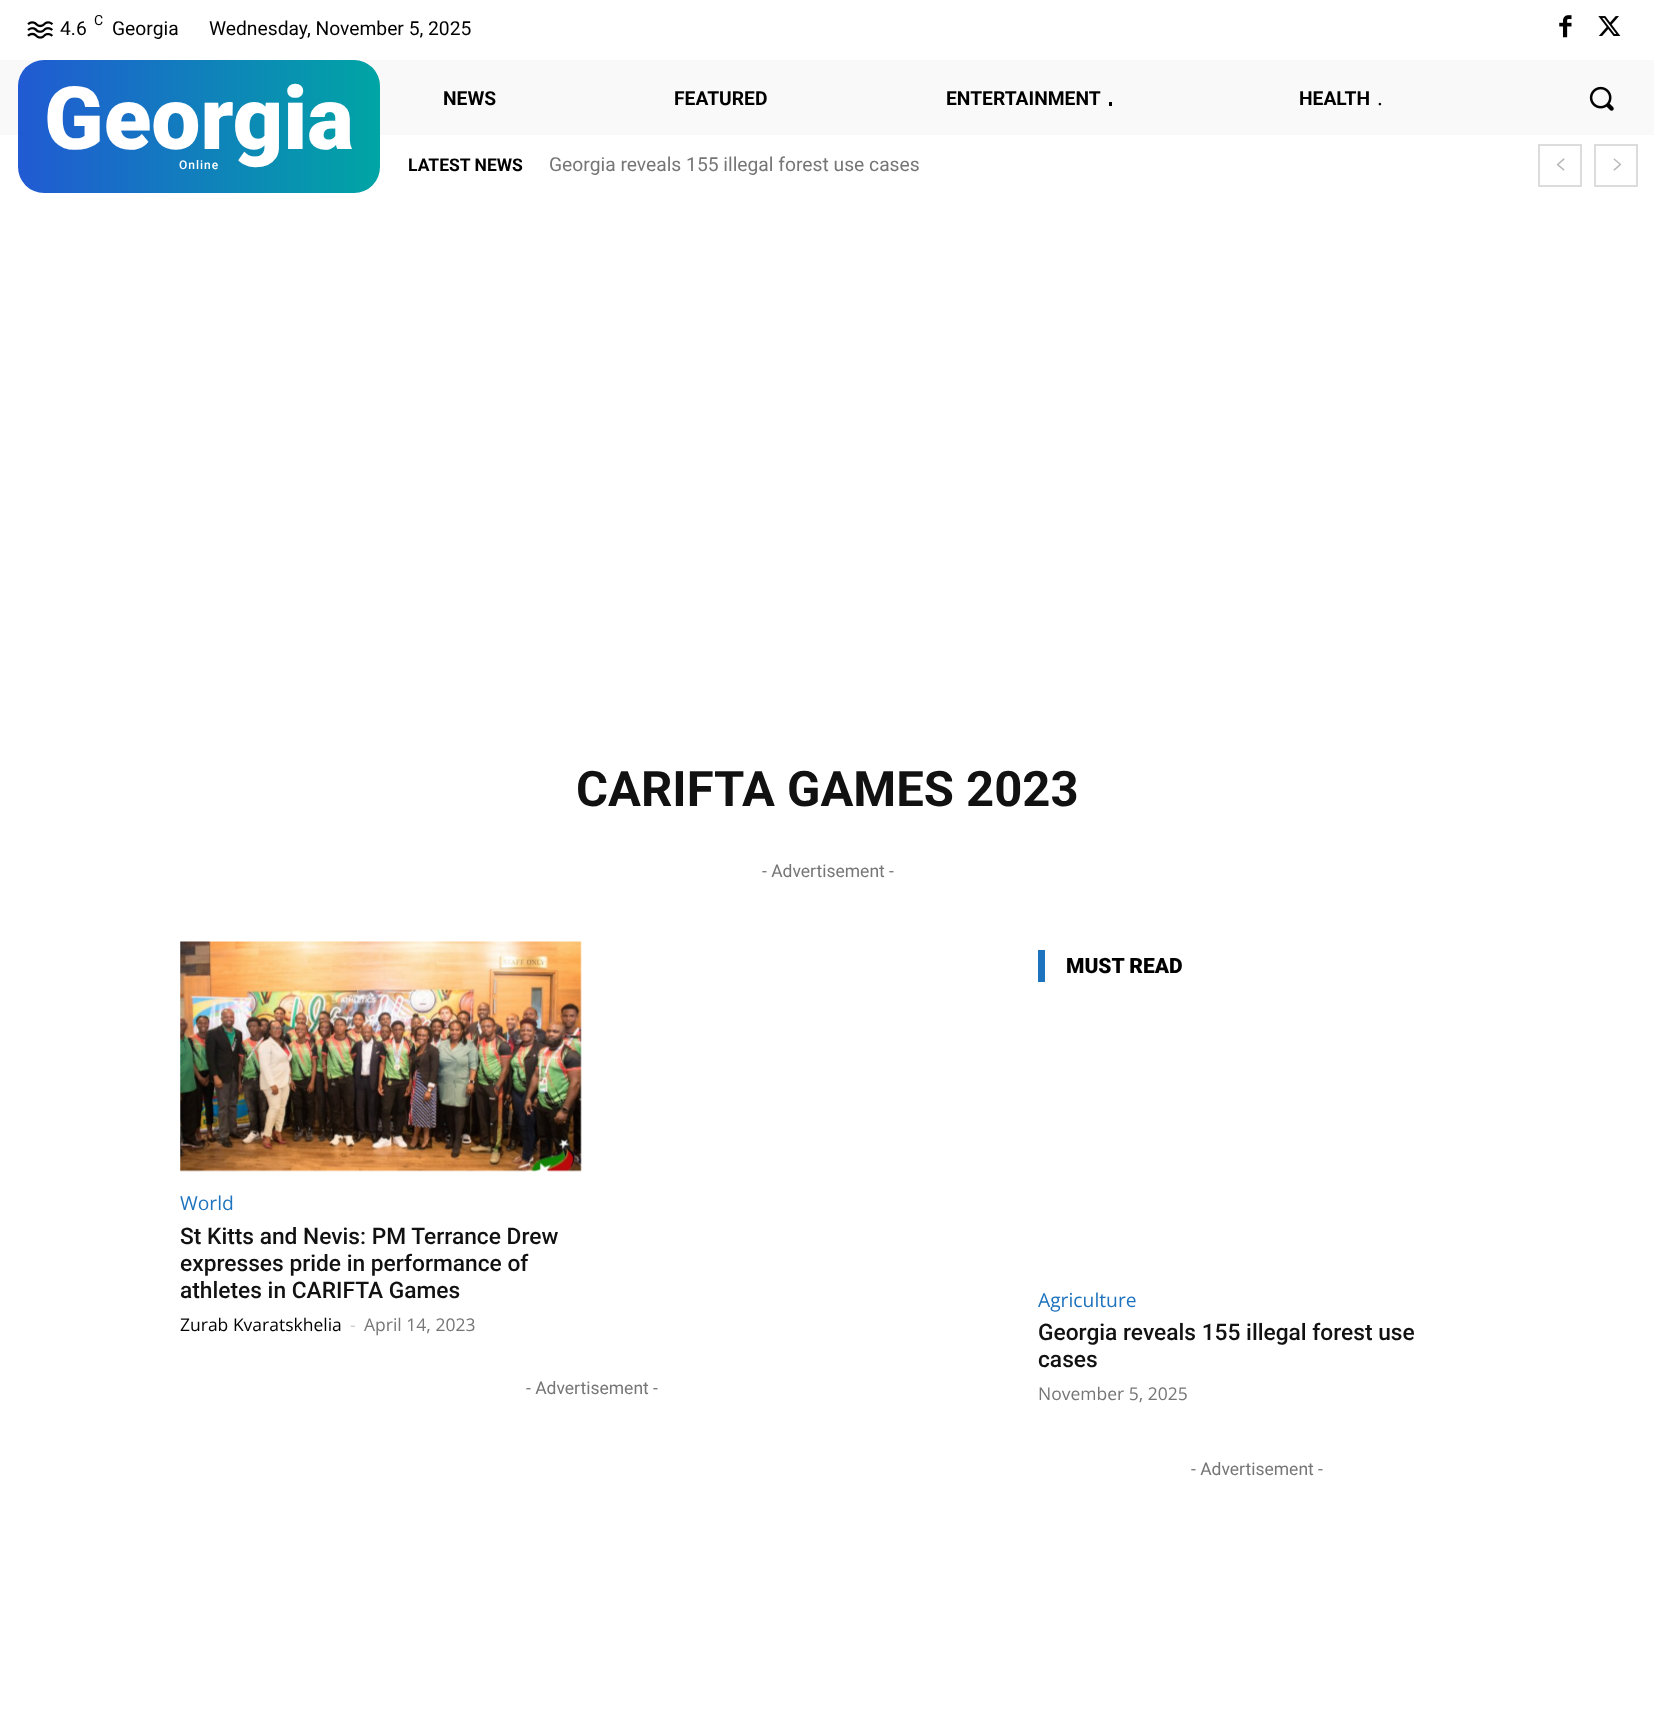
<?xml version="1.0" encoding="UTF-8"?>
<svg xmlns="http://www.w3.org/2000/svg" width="1654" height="1715">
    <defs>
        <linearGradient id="g1" gradientUnits="userSpaceOnUse" x1="380" y1="126" x2="18" y2="126"><stop offset="0" stop-color="#00A5A5"/><stop offset="1" stop-color="#215AD3"/></linearGradient>
    </defs>
    <rect width="100%" height="100%" fill="#FFFFFF"/>
    <image x="27" y="21" width="27" height="18" href="img_01.png"/>
    <text x="60" y="35" font-family="Roboto" font-size="19.25" fill="#000000">4.6</text>
    <text x="94" y="25" font-family="Roboto" font-size="14" fill="#000000">C</text>
    <text x="112" y="35" font-family="Roboto" font-size="19.25" fill="#000000">Georgia</text>
    <text x="209" y="35" font-family="Roboto" font-size="19.25" fill="#000000">Wednesday, November 5, 2025</text>
    <image x="1559" y="15" width="13" height="23" href="img_02.png"/>
    <image x="1598" y="16" width="23" height="20" href="img_03.png"/>
    <rect x="0" y="60" width="1654" height="75" fill="#F9F9F9"/>
    <rect x="18" y="60" width="362" height="133" rx="26" fill="url(#g1)"/>
    <text x="44" y="149" font-family="Roboto" font-size="87.5" font-weight="900" fill="#FFFFFF">Georgia</text>
    <text x="179" y="169" font-family="Roboto" font-size="12" font-weight="500" letter-spacing="1" fill="#FFFFFF">Online</text>
    <text x="443" y="105" font-family="Roboto" font-size="19.25" font-weight="700" fill="#000000">NEWS</text>
    <text x="674" y="105" font-family="Roboto" font-size="19.25" font-weight="700" fill="#000000">FEATURED</text>
    <text x="946" y="105" font-family="Roboto" font-size="19.25" font-weight="700" fill="#000000">ENTERTAINMENT</text>
    <rect x="1109" y="102" width="3" height="4" fill="#000000"/>
    <text x="1299" y="105" font-family="Roboto" font-size="19.25" font-weight="700" fill="#000000">HEALTH</text>
    <image x="1378" y="102" width="4" height="4" href="img_04.png"/>
    <image x="1589" y="86" width="25" height="25" href="img_05.png"/>
    <text x="408" y="171" font-family="Roboto" font-size="17.5" font-weight="700" fill="#000000">LATEST NEWS</text>
    <text x="549" y="171" font-family="Roboto" font-size="19.25" fill="#767676">Georgia reveals 155 illegal forest use cases</text>
    <rect x="1539" y="145" width="42" height="41" fill="none" stroke="#DCDCDC" stroke-width="2"/>
    <image x="1556" y="158" width="9" height="13" href="img_06.png"/>
    <rect x="1595" y="145" width="42" height="41" fill="none" stroke="#DCDCDC" stroke-width="2"/>
    <image x="1613" y="158" width="9" height="13" href="img_07.png"/>
    <text x="576" y="806" font-family="Roboto" font-size="49" font-weight="700" fill="#111111">CARIFTA GAMES 2023</text>
    <text x="762" y="877" font-family="Roboto" font-size="17.5" fill="#767676">- Advertisement -</text>
    <image x="180" y="941" width="402" height="231" href="img_08.png"/>
    <text x="180" y="1210" font-family="Open Sans" font-size="19.25" fill="#1E73BE">World</text>
    <text font-family="Roboto" font-size="22.75" font-weight="500" fill="#111111">
        <tspan x="180" y="1244">St Kitts and Nevis: PM Terrance Drew</tspan>
        <tspan x="180" y="1271">expresses pride in performance of</tspan>
        <tspan x="180" y="1298">athletes in CARIFTA Games</tspan>
    </text>
    <text x="180" y="1331" font-family="Open Sans" font-size="17.5" fill="#000000">Zurab Kvaratskhelia</text>
    <text x="350" y="1331" font-family="Open Sans" font-size="17.5" fill="#CCCCCC">-</text>
    <text x="364" y="1331" font-family="Open Sans" font-size="17.5" fill="#767676">April 14, 2023</text>
    <text x="526" y="1394" font-family="Roboto" font-size="17.5" fill="#767676">- Advertisement -</text>
    <rect x="1038" y="950" width="7" height="32" fill="#1E73BE"/>
    <text x="1066" y="973" font-family="Roboto" font-size="21" font-weight="900" fill="#000000">MUST READ</text>
    <text x="1038" y="1307" font-family="Open Sans" font-size="19.25" fill="#1E73BE">Agriculture</text>
    <text font-family="Roboto" font-size="22.75" font-weight="500" fill="#111111">
        <tspan x="1038" y="1340">Georgia reveals 155 illegal forest use</tspan>
        <tspan x="1038" y="1367">cases</tspan>
    </text>
    <text x="1038" y="1400" font-family="Open Sans" font-size="17.5" fill="#767676">November 5, 2025</text>
    <text x="1191" y="1475" font-family="Roboto" font-size="17.5" fill="#767676">- Advertisement -</text>
</svg>
